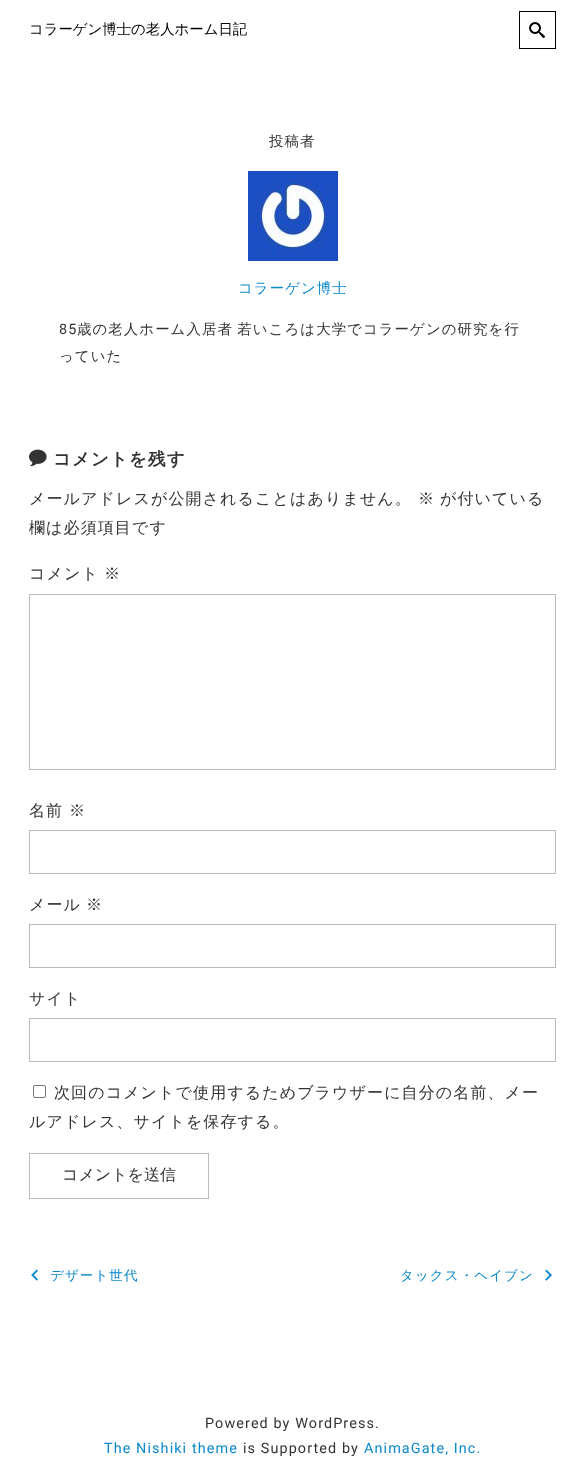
<?xml version="1.0" encoding="UTF-8"?>
<svg xmlns="http://www.w3.org/2000/svg" width="585" height="1478">
    <rect width="100%" height="100%" fill="#FFFFFF"/>
    <text x="29" y="34" font-family="WenQuanYi Zen Hei" font-size="14.4" font-weight="500" fill="#000000">コラーゲン博士の老人ホーム日記</text>
    <rect x="519.5" y="11.5" width="36" height="37" fill="none" stroke="#000000"/>
    <image x="529" y="22" width="16" height="16" href="img_01.png"/>
    <text x="269" y="146" font-family="WenQuanYi Zen Hei" font-size="14.4" font-weight="500" letter-spacing="1.1" fill="#333333">投稿者</text>
    <image x="248" y="171" width="90" height="90" href="img_02.png"/>
    <text x="238" y="293" font-family="WenQuanYi Zen Hei" font-size="14.4" font-weight="500" letter-spacing="1.1" fill="#0A88CC">コラーゲン博士</text>
    <text x="59" y="334" font-family="Roboto" font-size="14.4" letter-spacing="1.1" fill="#333333">85</text>
    <text x="77" y="334" word-spacing="-1" font-family="WenQuanYi Zen Hei" font-size="14.4" font-weight="500" letter-spacing="1.1" fill="#333333">歳の老人ホーム入居者 若いころは大学でコラーゲンの研究を行</text>
    <text x="59" y="361" font-family="WenQuanYi Zen Hei" font-size="14.4" font-weight="500" letter-spacing="1.1" fill="#333333">っていた</text>
    <image x="29" y="449" width="18" height="18" href="img_03.png"/>
    <text x="53" y="465" font-family="WenQuanYi Zen Hei" font-size="17.5" font-weight="700" letter-spacing="1.1" fill="#333333">コメントを残す</text>
    <text x="29" y="504" font-family="WenQuanYi Zen Hei" font-size="16" font-weight="500" letter-spacing="1.1" fill="#333333">メールアドレスが公開されることはありません。</text>
    <text x="418" y="504" font-family="WenQuanYi Zen Hei" font-size="16" font-weight="500" letter-spacing="1.1" fill="#333333">※</text>
    <text x="440" y="504" font-family="WenQuanYi Zen Hei" font-size="16" font-weight="500" letter-spacing="1.1" fill="#333333">が付いている</text>
    <text x="29" y="533" font-family="WenQuanYi Zen Hei" font-size="16" font-weight="500" letter-spacing="1.1" fill="#333333">欄は必須項目です</text>
    <text x="29" y="579" font-family="WenQuanYi Zen Hei" font-size="16" font-weight="500" letter-spacing="1.1" fill="#333333">コメント</text>
    <text x="104" y="579" font-family="WenQuanYi Zen Hei" font-size="16" font-weight="500" letter-spacing="1.1" fill="#333333">※</text>
    <rect x="29.5" y="594.5" width="526" height="175" fill="none" stroke="#BBBBBB"/>
    <text x="29" y="816" font-family="WenQuanYi Zen Hei" font-size="16" font-weight="500" letter-spacing="1.1" fill="#333333">名前</text>
    <text x="69" y="816" font-family="WenQuanYi Zen Hei" font-size="16" font-weight="500" letter-spacing="1.1" fill="#333333">※</text>
    <rect x="29.5" y="830.5" width="526" height="43" fill="none" stroke="#BBBBBB"/>
    <text x="29" y="910" font-family="WenQuanYi Zen Hei" font-size="16" font-weight="500" letter-spacing="1.1" fill="#333333">メール</text>
    <text x="86" y="910" font-family="WenQuanYi Zen Hei" font-size="16" font-weight="500" letter-spacing="1.1" fill="#333333">※</text>
    <rect x="29.5" y="924.5" width="526" height="43" fill="none" stroke="#BBBBBB"/>
    <text x="29" y="1004" font-family="WenQuanYi Zen Hei" font-size="16" font-weight="500" letter-spacing="1.1" fill="#333333">サイト</text>
    <rect x="29.5" y="1018.5" width="526" height="43" fill="none" stroke="#BBBBBB"/>
    <rect x="33.5" y="1085.5" width="12" height="12" rx="1.5" fill="none" stroke="#767676"/>
    <text x="54" y="1098" font-family="WenQuanYi Zen Hei" font-size="16" font-weight="500" letter-spacing="1.1" fill="#333333">次回のコメントで使用するためブラウザーに自分の名前、メー</text>
    <text x="29" y="1127" font-family="WenQuanYi Zen Hei" font-size="16" font-weight="500" letter-spacing="1.1" fill="#333333">ルアドレス、サイトを保存する。</text>
    <rect x="29.5" y="1153.5" width="179" height="45" fill="none" stroke="#BBBBBB"/>
    <text x="62" y="1180" font-family="WenQuanYi Zen Hei" font-size="16" font-weight="500" fill="#333333">コメントを送信</text>
    <image x="31" y="1269" width="7" height="12" href="img_04.png"/>
    <text x="50" y="1280" font-family="WenQuanYi Zen Hei" font-size="13.5" font-weight="500" letter-spacing="1.1" fill="#0A88CC">デザート世代</text>
    <text x="400" y="1280" font-family="WenQuanYi Zen Hei" font-size="13.5" font-weight="500" letter-spacing="1.1" fill="#0A88CC">タックス・ヘイブン</text>
    <image x="545" y="1269" width="7" height="12" href="img_05.png"/>
    <text x="205" y="1428" font-family="Roboto" font-size="14.4" letter-spacing="1.1" fill="#333333">Powered by WordPress.</text>
    <text x="104" y="1453" font-family="Roboto" font-size="14.4" letter-spacing="1.1" fill="#0A88CC">The Nishiki theme</text>
    <text x="243" y="1453" font-family="Roboto" font-size="14.4" letter-spacing="1.1" fill="#333333">is Supported by</text>
    <text x="364" y="1453" font-family="Roboto" font-size="14.4" letter-spacing="1.1" fill="#0A88CC">AnimaGate, Inc.</text>
</svg>
